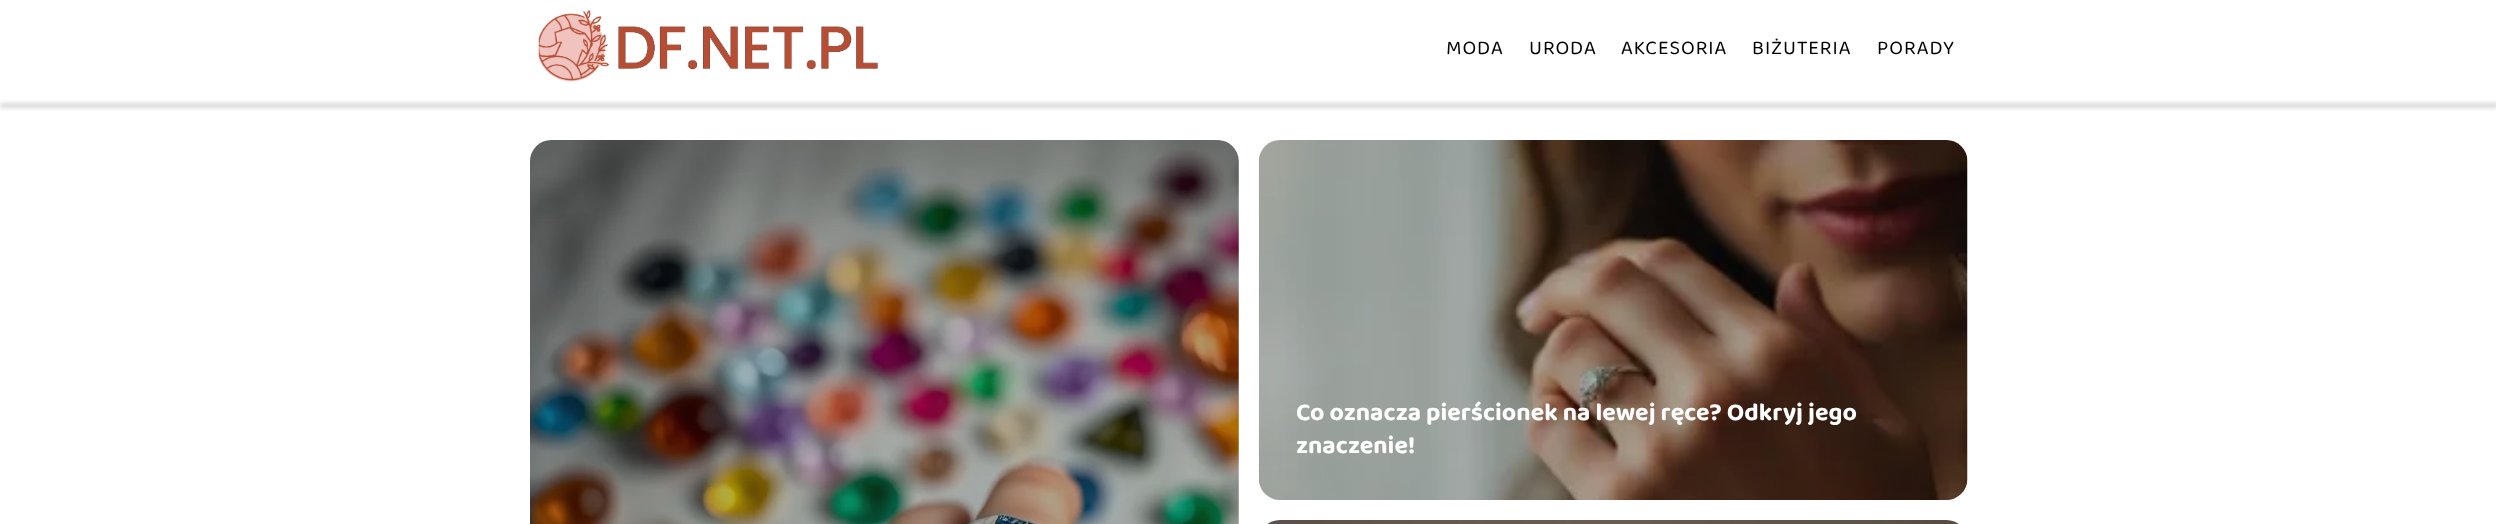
<?xml version="1.0" encoding="UTF-8"?>
<svg xmlns="http://www.w3.org/2000/svg" width="2496" height="524">
    <defs>
        <filter id="blur1" x="-50%" y="-200%" width="200%" height="500%"><feGaussianBlur stdDeviation="2.5"/></filter>
    </defs>
    <rect width="100%" height="100%" fill="#FFFFFF"/>
    <image x="538" y="10" width="340" height="72" href="img_01.png"/>
    <text x="1446" y="54" font-family="'Baloo 2'" font-size="20" letter-spacing="0.9" fill="#000000">MODA</text>
    <text x="1529" y="54" font-family="'Baloo 2'" font-size="20" letter-spacing="0.9" fill="#000000">URODA</text>
    <text x="1621" y="54" font-family="'Baloo 2'" font-size="20" letter-spacing="0.9" fill="#000000">AKCESORIA</text>
    <text x="1752" y="54" font-family="'Baloo 2'" font-size="20" letter-spacing="0.9" fill="#000000">BIŻUTERIA</text>
    <text x="1877" y="54" font-family="'Baloo 2'" font-size="20" letter-spacing="0.9" fill="#000000">PORADY</text>
    <rect x="0" y="104" width="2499" height="3" fill="#000000" fill-opacity="0.25" filter="url(#blur1)"/>
    <image x="530" y="140" width="709" height="384" href="img_02.png"/>
    <image x="1258" y="140" width="710" height="360" href="img_03.png"/>
    <text font-family="'Baloo 2'" font-size="25" font-weight="700" fill="#FFFFFF">
        <tspan x="1296" y="420">Co oznacza pierścionek na lewej ręce? Odkryj jego</tspan>
        <tspan x="1296" y="453">znaczenie!</tspan>
    </text>
    <image x="1267" y="520" width="692" height="4" href="img_04.png"/>
</svg>
